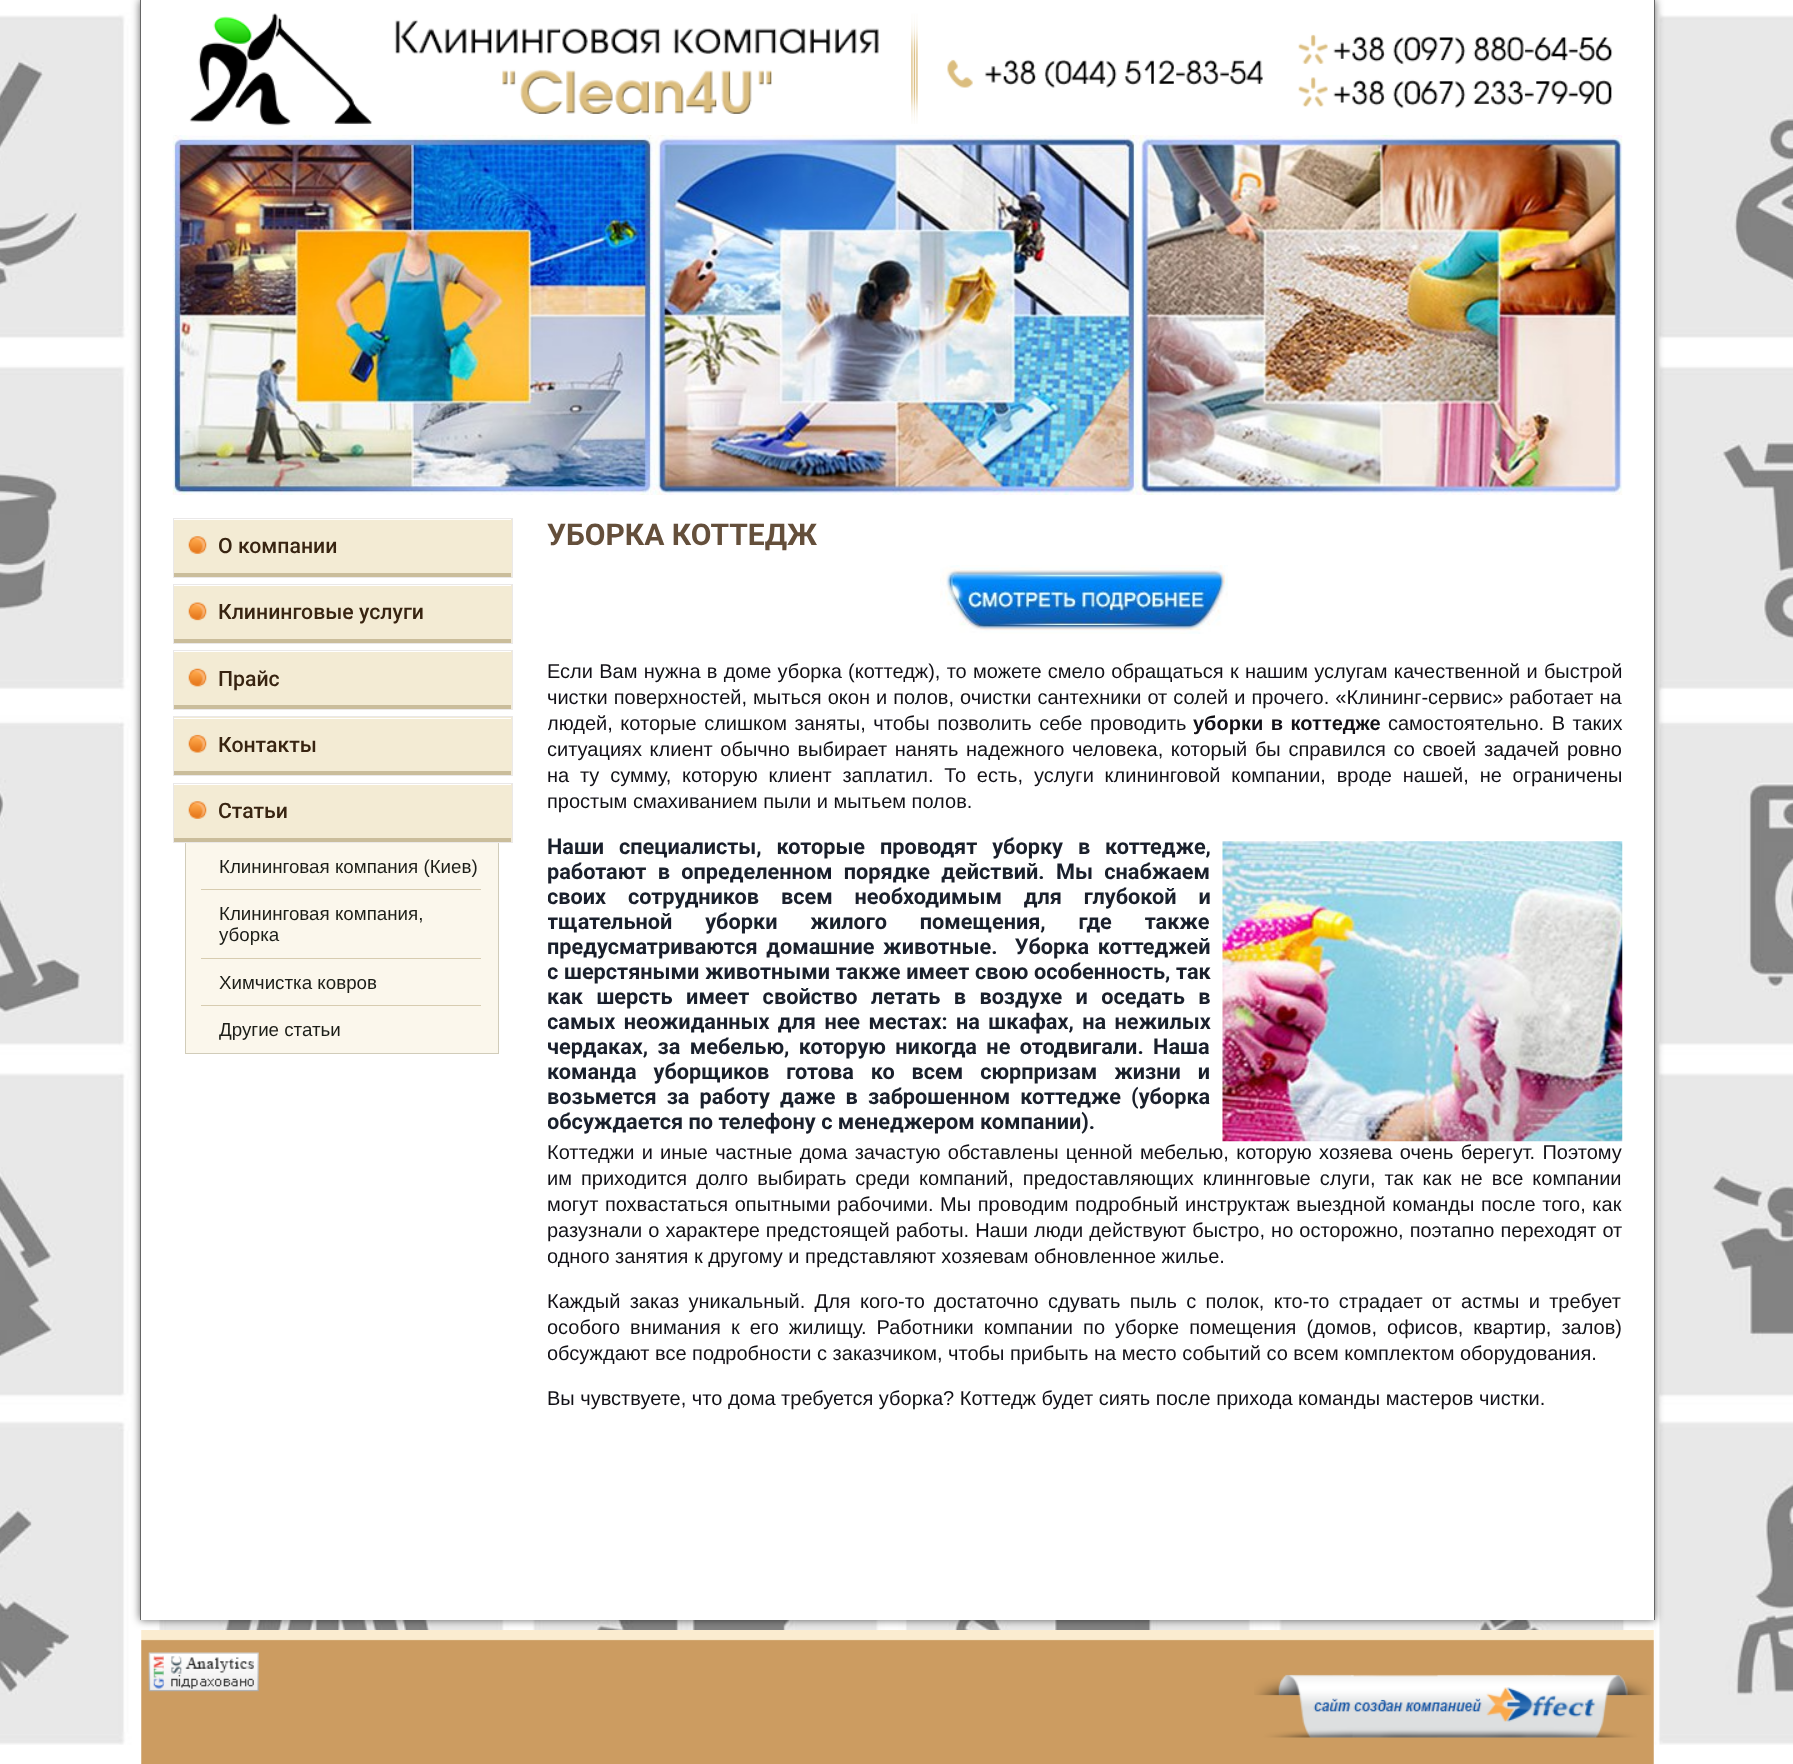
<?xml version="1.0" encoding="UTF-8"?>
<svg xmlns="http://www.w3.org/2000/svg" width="1793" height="1764">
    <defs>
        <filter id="blur1" x="-50%" y="-200%" width="200%" height="500%"><feGaussianBlur stdDeviation="4.5"/></filter>
        <clipPath id="clip1"><rect x="548" y="565" width="1075" height="879"/></clipPath>
    </defs>
    <rect width="100%" height="100%" fill="#FFFFFF"/>
    <image x="0" y="0" width="1793" height="1764" href="img_01.png"/>
    <rect x="140" y="0" width="1515" height="1620" fill="#000000" fill-opacity="0.6" filter="url(#blur1)"/>
    <rect x="141" y="0" width="1513" height="1620" fill="#FFFFFF"/>
    <rect x="1654" y="0" width="1" height="1620" fill="#666666"/>
    <rect x="140" y="0" width="1" height="1620" fill="#666666"/>
    <image x="189" y="13" width="1424" height="113" href="img_02.png"/>
    <image x="172" y="135" width="1451" height="360" href="img_03.png"/>
    <rect x="174" y="519" width="338" height="58" fill="#F3EBD4"/>
    <image x="188" y="536" width="19" height="18" href="img_04.png"/>
    <rect x="174" y="519" width="337" height="1" fill="#FFFFFF"/>
    <rect x="174" y="573" width="337" height="4" fill="#CABD9B"/>
    <rect x="173.5" y="518.5" width="339" height="59" fill="none" stroke="#EAE8E8"/>
    <text x="218" y="553" font-family="Roboto" font-size="21.25" font-weight="500" fill="#382411">О компании</text>
    <rect x="174" y="585" width="338" height="58" fill="#F3EBD4"/>
    <image x="188" y="602" width="19" height="19" href="img_05.png"/>
    <rect x="174" y="585" width="337" height="1" fill="#FFFFFF"/>
    <rect x="174" y="639" width="337" height="4" fill="#CABD9B"/>
    <rect x="173.5" y="584.5" width="339" height="59" fill="none" stroke="#EAE8E8"/>
    <text x="218" y="619" font-family="Roboto" font-size="21.25" font-weight="500" fill="#382411">Клининговые услуги</text>
    <rect x="174" y="651" width="338" height="58" fill="#F3EBD4"/>
    <image x="188" y="668" width="19" height="19" href="img_06.png"/>
    <rect x="174" y="651" width="337" height="1" fill="#FFFFFF"/>
    <rect x="174" y="705" width="337" height="4" fill="#CABD9B"/>
    <rect x="173.5" y="650.5" width="339" height="59" fill="none" stroke="#EAE8E8"/>
    <text x="218" y="686" font-family="Roboto" font-size="21.25" font-weight="500" fill="#382411">Прайс</text>
    <rect x="174" y="717" width="338" height="58" fill="#F3EBD4"/>
    <image x="188" y="734" width="19" height="19" href="img_07.png"/>
    <rect x="174" y="718" width="337" height="1" fill="#FFFFFF"/>
    <rect x="174" y="771" width="337" height="4" fill="#CABD9B"/>
    <rect x="173.5" y="716.5" width="339" height="59" fill="none" stroke="#EAE8E8"/>
    <text x="218" y="752" font-family="Roboto" font-size="21.25" font-weight="500" fill="#382411">Контакты</text>
    <rect x="174" y="784" width="338" height="58" fill="#F3EBD4"/>
    <image x="188" y="801" width="19" height="18" href="img_04.png"/>
    <rect x="174" y="784" width="337" height="1" fill="#FFFFFF"/>
    <rect x="174" y="838" width="337" height="4" fill="#CABD9B"/>
    <rect x="173.5" y="783.5" width="339" height="59" fill="none" stroke="#EAE8E8"/>
    <text x="218" y="818" font-family="Roboto" font-size="21.25" font-weight="500" fill="#382411">Статьи</text>
    <rect x="186" y="843" width="312" height="210" fill="#FBF7EC"/>
    <rect x="498" y="843" width="1" height="211" fill="#D1CCB9"/>
    <rect x="185" y="843" width="1" height="163" fill="#D1CCB9"/>
    <text x="219" y="873" font-family="Liberation Sans" font-size="18.75" fill="#1C1E18">Клининговая компания (Киев)</text>
    <rect x="201" y="889" width="280" height="1" fill="#D7CCB0"/>
    <text font-family="Liberation Sans" font-size="18.75" fill="#1C1E18">
        <tspan x="219" y="920">Клининговая компания,</tspan>
        <tspan x="219" y="941">уборка</tspan>
    </text>
    <rect x="201" y="958" width="280" height="1" fill="#D7CCB0"/>
    <text x="219" y="989" font-family="Liberation Sans" font-size="18.75" fill="#1C1E18">Химчистка ковров</text>
    <rect x="201" y="1005" width="280" height="1" fill="#D7CCB0"/>
    <rect x="185" y="1053" width="314" height="1" fill="#D1CCB9"/>
    <rect x="185" y="1006" width="1" height="48" fill="#D1CCB9"/>
    <text x="219" y="1036" font-family="Liberation Sans" font-size="18.75" fill="#1C1E18">Другие статьи</text>
    <text x="547" y="545" font-family="Roboto" font-size="30" font-weight="700" fill="#644F3B">УБОРКА КОТТЕДЖ</text>
    <image x="940" y="565" width="288" height="69" href="img_08.png"/>
    <text font-family="Liberation Sans" font-size="20" fill="#121117">
        <tspan x="547" y="678" word-spacing="0.7">Если Вам нужна в доме уборка (коттедж), то можете смело обращаться к нашим услугам качественной и быстрой</tspan>
        <tspan x="547" y="704" word-spacing="0.5">чистки поверхностей, мыться окон и полов, очистки сантехники от солей и прочего. «Клининг-сервис» работает на</tspan>
    </text>
    <g clip-path="url(#clip1)">
        <text x="547" y="730" word-spacing="2" font-family="Liberation Sans" font-size="20" fill="#121117">людей, которые слишком заняты, чтобы позволить себе проводить</text>
    </g>
    <text x="1193" y="730" word-spacing="2" font-family="Liberation Sans" font-size="20" font-weight="700" fill="#121117">уборки в коттедже</text>
    <text x="1388" y="730" word-spacing="2" font-family="Liberation Sans" font-size="20" fill="#121117">самостоятельно. В таких</text>
    <g clip-path="url(#clip1)">
        <text x="547" y="756" word-spacing="2.1" font-family="Liberation Sans" font-size="20" fill="#121117">ситуациях клиент обычно выбирает нанять надежного человека, который бы справился со своей задачей ровно</text>
    </g>
    <text font-family="Liberation Sans" font-size="20" fill="#121117">
        <tspan x="547" y="782" word-spacing="5.25">на ту сумму, которую клиент заплатил. То есть, услуги клининговой компании, вроде нашей, не ограничены</tspan>
        <tspan x="547" y="808">простым смахиванием пыли и мытьем полов.</tspan>
    </text>
    <text x="547" y="854" word-spacing="9.5" font-family="Roboto" font-size="21.7" font-weight="700" fill="#1A202C">Наши специалисты, которые проводят уборку в коттедже,</text>
    <image x="1222" y="841" width="401" height="301" href="img_09.png"/>
    <text x="547" y="879" word-spacing="6" font-family="Roboto" font-size="21.7" font-weight="700" fill="#1A202C">работают в определенном порядке действий. Мы снабжаем</text>
    <g clip-path="url(#clip1)">
        <text font-family="Roboto" font-size="21.7" font-weight="700" fill="#1A202C">
            <tspan x="547" y="904" word-spacing="16.5">своих сотрудников всем необходимым для глубокой и</tspan>
            <tspan x="547" y="929" word-spacing="27.5">тщательной уборки жилого помещения, где также</tspan>
        </text>
    </g>
    <text x="547" y="954" word-spacing="3.25" font-family="Roboto" font-size="21.7" font-weight="700" fill="#1A202C" xml:space="preserve">предусматриваются домашние животные.  Уборка коттеджей</text>
    <g clip-path="url(#clip1)">
        <text x="547" y="979" word-spacing="0.25" font-family="Roboto" font-size="21.7" font-weight="700" fill="#1A202C">с шерстяными животными также имеет свою особенность, так</text>
    </g>
    <text x="547" y="1004" word-spacing="8" font-family="Roboto" font-size="21.7" font-weight="700" fill="#1A202C">как шерсть имеет свойство летать в воздухе и оседать в</text>
    <g clip-path="url(#clip1)">
        <text font-family="Roboto" font-size="21.7" font-weight="700" fill="#1A202C">
            <tspan x="547" y="1029" word-spacing="3">самых неожиданных для нее местах: на шкафах, на нежилых</tspan>
            <tspan x="547" y="1054" word-spacing="4">чердаках, за мебелью, которую никогда не отодвигали. Наша</tspan>
        </text>
    </g>
    <text font-family="Roboto" font-size="21.7" font-weight="700" fill="#1A202C">
        <tspan x="547" y="1079" word-spacing="11.5">команда уборщиков готова ко всем сюрпризам жизни и</tspan>
        <tspan x="547" y="1104" word-spacing="4.75">возьмется за работу даже в заброшенном коттедже (уборка</tspan>
    </text>
    <g clip-path="url(#clip1)">
        <text x="547" y="1129" font-family="Roboto" font-size="21.7" font-weight="700" fill="#1A202C">обсуждается по телефону с менеджером компании).</text>
    </g>
    <text font-family="Liberation Sans" font-size="20" fill="#121117">
        <tspan x="547" y="1159" word-spacing="1.75">Коттеджи и иные частные дома зачастую обставлены ценной мебелью, которую хозяева очень берегут. Поэтому</tspan>
        <tspan x="547" y="1185" word-spacing="3.5">им приходится долго выбирать среди компаний, предоставляющих клиннговые слуги, так как не все компании</tspan>
        <tspan x="547" y="1211" word-spacing="1">могут похвастаться опытными рабочими. Мы проводим подробный инструктаж выездной команды после того, как</tspan>
        <tspan x="547" y="1237" word-spacing="0.5">разузнали о характере предстоящей работы. Наши люди действуют быстро, но осторожно, поэтапно переходят от</tspan>
    </text>
    <g clip-path="url(#clip1)">
        <text x="547" y="1263" font-family="Liberation Sans" font-size="20" fill="#121117">одного занятия к другому и представляют хозяевам обновленное жилье.</text>
    </g>
    <text x="547" y="1308" word-spacing="3.75" font-family="Liberation Sans" font-size="20" fill="#121117">Каждый заказ уникальный. Для кого-то достаточно сдувать пыль с полок, кто-то страдает от астмы и требует</text>
    <g clip-path="url(#clip1)">
        <text font-family="Liberation Sans" font-size="20" fill="#121117">
            <tspan x="547" y="1334" word-spacing="4.5">особого внимания к его жилищу. Работники компании по уборке помещения (домов, офисов, квартир, залов)</tspan>
            <tspan x="547" y="1360">обсуждают все подробности с заказчиком, чтобы прибыть на место событий со всем комплектом оборудования.</tspan>
        </text>
    </g>
    <text x="547" y="1405" font-family="Liberation Sans" font-size="20" fill="#121117">Вы чувствуете, что дома требуется уборка? Коттедж будет сиять после прихода команды мастеров чистки.</text>
    <image x="141" y="1630" width="1513" height="134" href="img_10.png"/>
    <image x="148" y="1652" width="111" height="40" href="img_11.png"/>
    <image x="1254" y="1674" width="397" height="64" href="img_12.png"/>
</svg>
